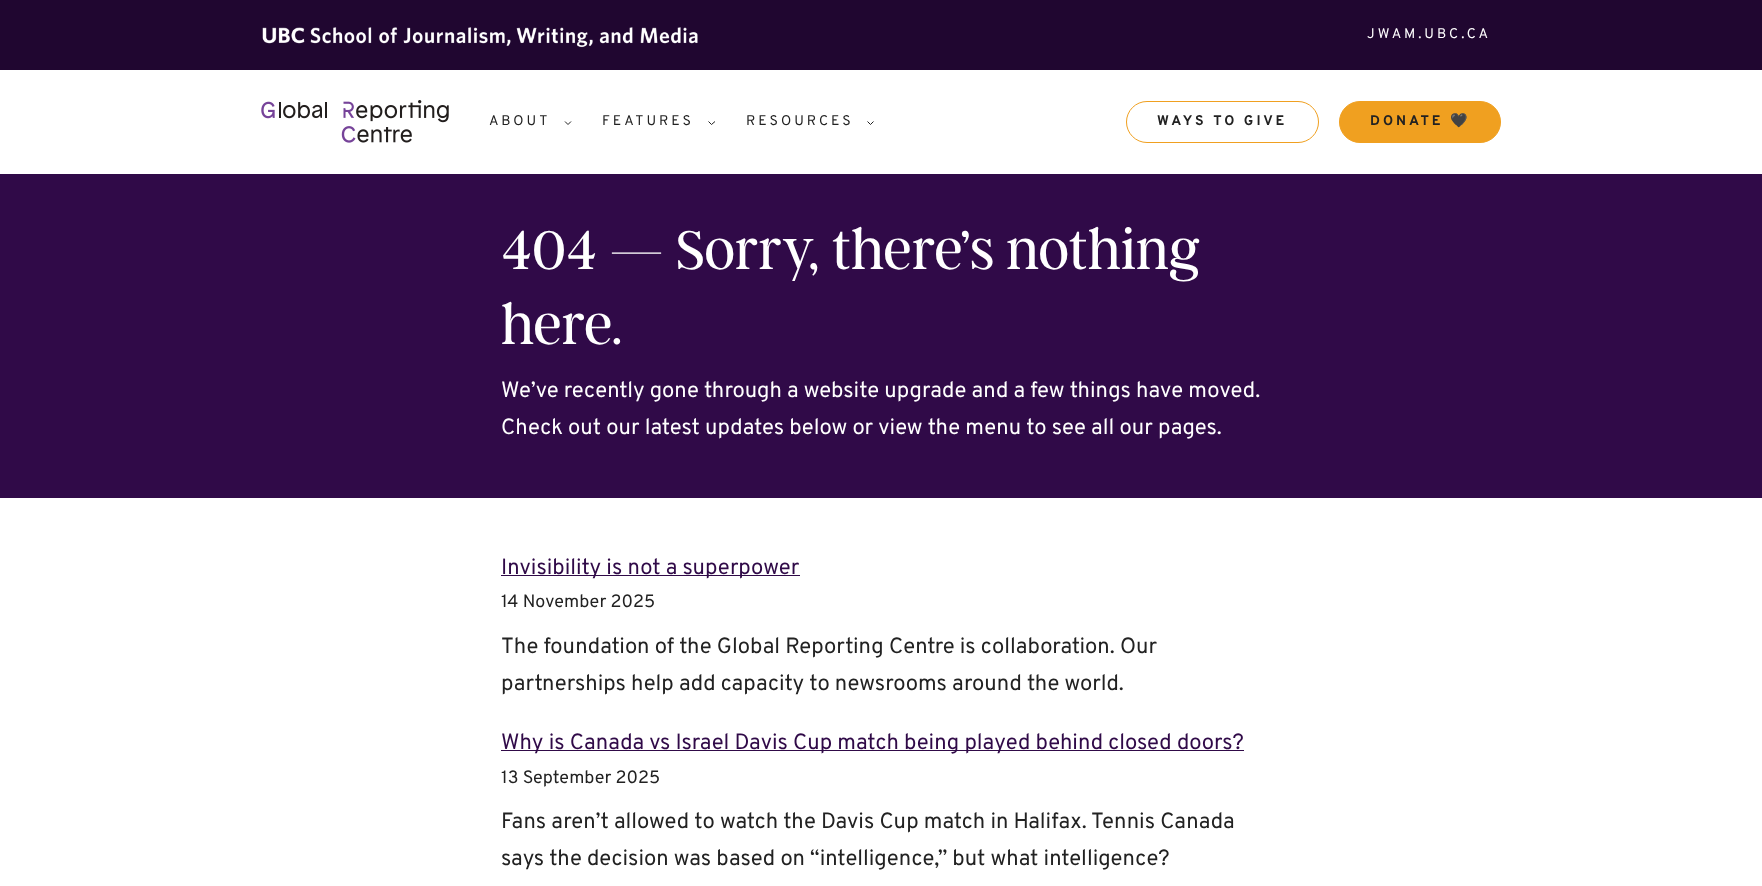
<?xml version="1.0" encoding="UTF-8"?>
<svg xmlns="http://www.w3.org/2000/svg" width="1762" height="886">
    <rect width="100%" height="100%" fill="#FFFFFF"/>
    <rect x="0" y="0" width="1762" height="70" fill="#200630"/>
    <image x="262" y="27" width="436" height="21" href="img_01.png"/>
    <text x="1367" y="38" font-family="Overpass" font-size="14" letter-spacing="3" fill="#FFFFFF">JWAM.UBC.CA</text>
    <image x="261" y="100" width="188" height="43" href="img_02.png"/>
    <text x="489" y="125" font-family="Overpass" font-size="14" letter-spacing="3" fill="#222222">ABOUT</text>
    <path d="M 565 121.5 L 568 124.5 L 571 121.5" fill="none" stroke="#222222"/>
    <text x="602" y="125" font-family="Overpass" font-size="14" letter-spacing="3" fill="#222222">FEATURES</text>
    <path d="M 708.5 121.5 L 711.5 124.5 L 715 121.5" fill="none" stroke="#222222"/>
    <text x="746" y="125" font-family="Overpass" font-size="14" letter-spacing="3" fill="#222222">RESOURCES</text>
    <path d="M 867.5 121.5 L 870.5 124.5 L 873.5 121.5" fill="none" stroke="#222222"/>
    <rect x="1126.5" y="101.5" width="192" height="41" rx="20.5" fill="none" stroke="#F0A020"/>
    <text x="1157" y="125" font-family="Overpass" font-size="14" font-weight="700" letter-spacing="3" fill="#222222">WAYS TO GIVE</text>
    <rect x="1339.5" y="101.5" width="161" height="41" rx="20.5" fill="#F0A020" stroke="#F0A020"/>
    <text x="1370" y="125" font-family="Overpass" font-size="14" font-weight="700" letter-spacing="3" fill="#222222">DONATE</text>
    <text x="1450" y="125" font-family="Noto Color Emoji" font-size="14" font-weight="700" letter-spacing="3" fill="#222222">🖤</text>
    <rect x="0" y="174" width="1762" height="324" fill="#300A48"/>
    <text font-family="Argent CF" font-size="60" font-weight="300" fill="#FFFFFF">
        <tspan x="501" y="269">404 — Sorry, there’s nothing</tspan>
        <tspan x="501" y="344">here.</tspan>
    </text>
    <text font-family="Overpass" font-size="22" fill="#FFFFFF">
        <tspan x="501" y="397">We’ve recently gone through a website upgrade and a few things have moved.</tspan>
        <tspan x="501" y="434">Check out our latest updates below or view the menu to see all our pages.</tspan>
    </text>
    <rect x="501" y="575" width="299" height="1" fill="#300A48"/>
    <text x="501" y="574" font-family="Overpass" font-size="22" fill="#300A48">Invisibility is not a superpower</text>
    <text x="501" y="607" font-family="Overpass" font-size="17.9" fill="#222222">14 November 2025</text>
    <text font-family="Overpass" font-size="22" fill="#222222">
        <tspan x="501" y="653">The foundation of the Global Reporting Centre is collaboration. Our</tspan>
        <tspan x="501" y="690">partnerships help add capacity to newsrooms around the world.</tspan>
    </text>
    <rect x="501" y="750" width="743" height="1" fill="#300A48"/>
    <text x="501" y="749" font-family="Overpass" font-size="22" fill="#300A48">Why is Canada vs Israel Davis Cup match being played behind closed doors?</text>
    <text x="501" y="783" font-family="Overpass" font-size="17.9" fill="#222222">13 September 2025</text>
    <text font-family="Overpass" font-size="22" fill="#222222">
        <tspan x="501" y="828">Fans aren’t allowed to watch the Davis Cup match in Halifax. Tennis Canada</tspan>
        <tspan x="501" y="865">says the decision was based on “intelligence,” but what intelligence?</tspan>
    </text>
</svg>
